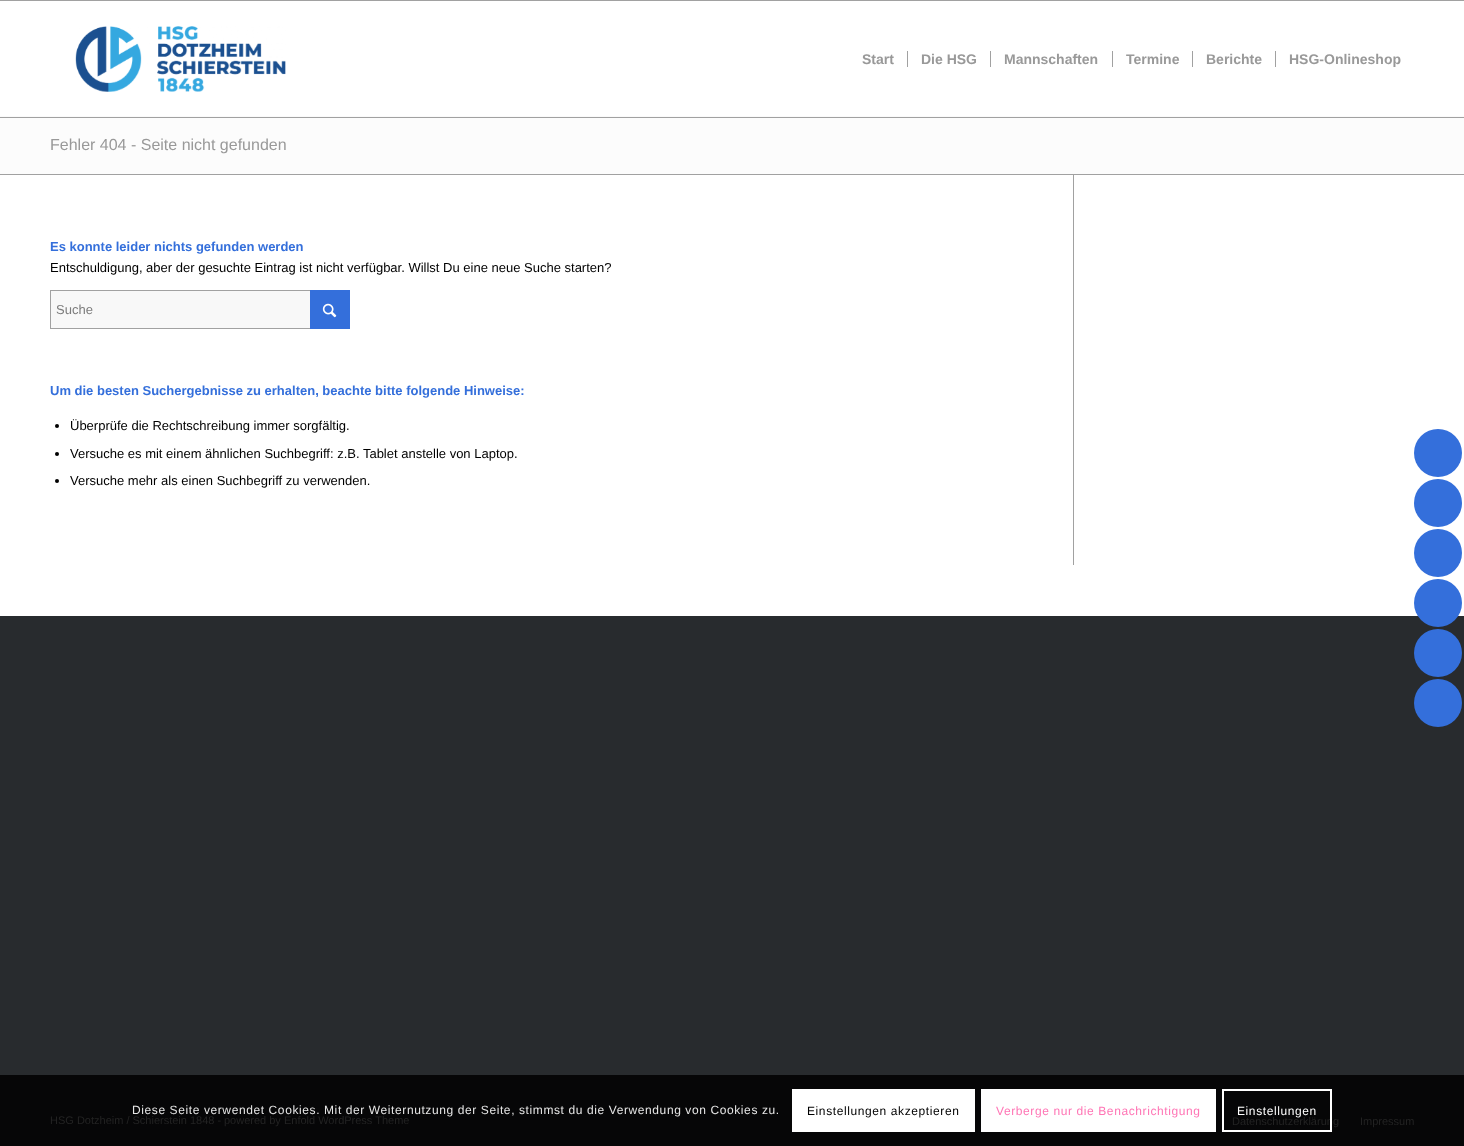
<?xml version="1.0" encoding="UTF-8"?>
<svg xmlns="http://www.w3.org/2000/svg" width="1464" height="1146">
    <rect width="100%" height="100%" fill="#282B2E"/>
    <rect x="0" y="1075" width="1464" height="71" fill="#060607"/>
    <rect x="0" y="175" width="1464" height="441" fill="#FFFFFF"/>
    <rect x="0" y="1" width="1464" height="115" fill="#FFFFFF"/>
    <rect x="0" y="0" width="1464" height="1" fill="#A1A1A1"/>
    <rect x="0" y="117" width="1464" height="1" fill="#A1A1A1"/>
    <image x="75" y="26" width="211" height="66" href="img_01.png"/>
    <text x="862" y="64" font-family="Liberation Sans" font-size="14" font-weight="700" fill="#999999">Start</text>
    <text x="921" y="64" font-family="Liberation Sans" font-size="14" font-weight="700" fill="#999999">Die HSG</text>
    <rect x="907" y="51" width="1" height="16" fill="#A1A1A1"/>
    <text x="1004" y="64" font-family="Liberation Sans" font-size="14" font-weight="700" fill="#999999">Mannschaften</text>
    <rect x="990" y="51" width="1" height="16" fill="#A1A1A1"/>
    <text x="1126" y="64" font-family="Liberation Sans" font-size="14" font-weight="700" fill="#999999">Termine</text>
    <rect x="1112" y="51" width="1" height="16" fill="#A1A1A1"/>
    <text x="1206" y="64" font-family="Liberation Sans" font-size="14" font-weight="700" fill="#999999">Berichte</text>
    <rect x="1192" y="51" width="1" height="16" fill="#A1A1A1"/>
    <text x="1289" y="64" font-family="Liberation Sans" font-size="14" font-weight="700" fill="#999999">HSG-Onlineshop</text>
    <rect x="1275" y="51" width="1" height="16" fill="#A1A1A1"/>
    <rect x="0" y="118" width="1464" height="56" fill="#FCFCFC"/>
    <rect x="0" y="116" width="1464" height="1" fill="#FAFAFA"/>
    <text x="50" y="150" font-family="Liberation Sans" font-size="16" fill="#999999">Fehler 404 - Seite nicht gefunden</text>
    <rect x="0" y="174" width="1464" height="1" fill="#A1A1A1"/>
    <rect x="1073" y="175" width="1" height="390" fill="#A1A1A1"/>
    <text x="50" y="251" font-family="Liberation Sans" font-size="13" font-weight="700" fill="#346FDB">Es konnte leider nichts gefunden werden</text>
    <text x="50" y="272" font-family="Liberation Sans" font-size="13" fill="#000000">Entschuldigung, aber der gesuchte Eintrag ist nicht verfügbar. Willst Du eine neue Suche starten?</text>
    <rect x="51" y="291" width="259" height="37" fill="#F8F8F8"/>
    <rect x="50.5" y="290.5" width="299" height="38" fill="none" stroke="#A1A1A1"/>
    <rect x="310" y="290" width="40" height="39" fill="#346FDB"/>
    <text x="56" y="314" font-family="Liberation Sans" font-size="13" fill="#7C7C7C">Suche</text>
    <image x="322" y="303" width="15" height="15" href="img_02.png"/>
    <text x="50" y="395" font-family="Liberation Sans" font-size="13" font-weight="700" fill="#346FDB">Um die besten Suchergebnisse zu erhalten, beachte bitte folgende Hinweise:</text>
    <circle cx="57" cy="426" r="2" fill="#000000"/>
    <text x="70" y="430" font-family="Liberation Sans" font-size="13" fill="#000000">Überprüfe die Rechtschreibung immer sorgfältig.</text>
    <circle cx="57" cy="454" r="2" fill="#000000"/>
    <text x="70" y="458" font-family="Liberation Sans" font-size="13" fill="#000000">Versuche es mit einem ähnlichen Suchbegriff: z.B. Tablet anstelle von Laptop.</text>
    <circle cx="57" cy="481" r="2" fill="#000000"/>
    <text x="70" y="485" font-family="Liberation Sans" font-size="13" fill="#000000">Versuche mehr als einen Suchbegriff zu verwenden.</text>
    <text x="50" y="1124" font-family="Liberation Sans" font-size="11" fill="#232323">HSG Dotzheim / Schierstein 1848 -</text>
    <text x="224" y="1124" font-family="Liberation Sans" font-size="11" fill="#232323">powered by Enfold WordPress Theme</text>
    <text x="1232" y="1125" font-family="Liberation Sans" font-size="11" fill="#232323">Datenschutzerklärung</text>
    <text x="1360" y="1125" font-family="Liberation Sans" font-size="11" fill="#232323">Impressum</text>
    <circle cx="1438" cy="453" r="24" fill="#346FDB"/>
    <circle cx="1438" cy="503" r="24" fill="#346FDB"/>
    <circle cx="1438" cy="553" r="24" fill="#346FDB"/>
    <circle cx="1438" cy="603" r="24" fill="#346FDB"/>
    <circle cx="1438" cy="653" r="24" fill="#346FDB"/>
    <circle cx="1438" cy="703" r="24" fill="#346FDB"/>
    <text x="132" y="1114" font-family="Liberation Sans" font-size="12" letter-spacing="0.6" fill="#E6E6E6">Diese Seite verwendet Cookies. Mit der Weiternutzung der Seite, stimmst du die Verwendung von Cookies zu.</text>
    <rect x="792" y="1089" width="183" height="43" fill="#FFFFFF"/>
    <text x="807" y="1115" font-family="Liberation Sans" font-size="12" letter-spacing="0.6" fill="#000000">Einstellungen akzeptieren</text>
    <rect x="981" y="1089" width="235" height="43" fill="#FFFFFF"/>
    <text x="996" y="1115" font-family="Liberation Sans" font-size="12" letter-spacing="0.6" fill="#FF75B5">Verberge nur die Benachrichtigung</text>
    <rect x="1223" y="1090" width="108" height="41" fill="none" stroke="#FFFFFF" stroke-width="2"/>
    <text x="1237" y="1115" font-family="Liberation Sans" font-size="12" letter-spacing="0.6" fill="#FFFFFF">Einstellungen</text>
</svg>
